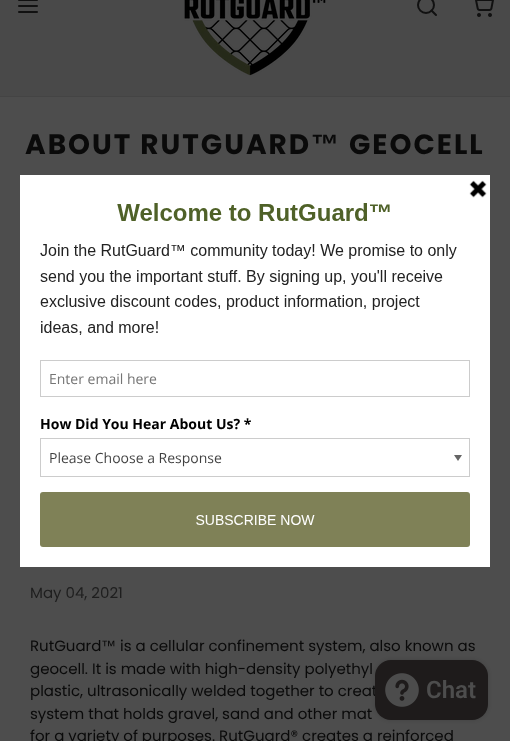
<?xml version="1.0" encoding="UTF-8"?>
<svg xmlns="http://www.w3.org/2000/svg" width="510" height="741">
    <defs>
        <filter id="blur1" x="-50%" y="-200%" width="200%" height="500%"><feGaussianBlur stdDeviation="2.5"/></filter>
    </defs>
    <rect width="100%" height="100%" fill="#4D4D4D"/>
    <rect x="0" y="0" width="510" height="96" fill="#494949"/>
    <rect x="0" y="96" width="510" height="1" fill="#444444"/>
    <path d="M 19 6 H 37 M 19 0 H 37 M 19 12 H 37" fill="none" stroke="#111111" stroke-width="2" stroke-linecap="round" stroke-linejoin="round"/>
    <image x="184" y="0" width="142" height="76" href="img_01.png"/>
    <circle cx="426" cy="5" r="8" fill="none" stroke="#111111" stroke-width="2"/>
    <path d="M 436 15 L 431.5 10.5" fill="none" stroke="#111111" stroke-width="2" stroke-linecap="round" stroke-linejoin="round"/>
    <image x="475" y="0" width="19" height="17" href="img_02.png"/>
    <text x="25" y="154" font-family="Poppins" font-size="28" font-weight="700" letter-spacing="2" fill="#0A0A0A">ABOUT RUTGUARD</text>
    <text x="311" y="154" font-family="Liberation Sans" font-size="28" font-weight="700" letter-spacing="2" fill="#0A0A0A">™</text>
    <text x="349" y="154" font-family="Poppins" font-size="28" font-weight="700" letter-spacing="2" fill="#0A0A0A">GEOCELL</text>
    <text x="30" y="598" font-family="Poppins" font-size="15" fill="#1E1E1E">May 04, 2021</text>
    <text x="30" y="651" font-family="Poppins" font-size="15" fill="#0A0A0A">RutGuard</text>
    <text x="101" y="651" font-family="Liberation Sans" font-size="15" fill="#0A0A0A">™</text>
    <text x="120" y="651" font-family="Poppins" font-size="15" fill="#0A0A0A">is a cellular confinement system, also known as</text>
    <text font-family="Poppins" font-size="15" fill="#0A0A0A">
        <tspan x="30" y="674">geocell. It is made with high-density polyethyl</tspan>
        <tspan x="30" y="696">plastic, ultrasonically welded together to creat</tspan>
        <tspan x="30" y="719">system that holds gravel, sand and other mat</tspan>
        <tspan x="30" y="741">for a variety of purposes. RutGuard® creates a reinforced</tspan>
    </text>
    <image x="20" y="175" width="470" height="392" href="img_03.png"/>
    <rect x="375" y="660" width="113" height="60" rx="16" fill="#000000" fill-opacity="0.15" filter="url(#blur1)"/>
    <rect x="375" y="660" width="113" height="60" rx="16" fill="#1E1B1B"/>
    <image x="385" y="673" width="34" height="34" href="img_04.png"/>
    <text x="426" y="698" font-family="Roboto" font-size="24" font-weight="600" fill="#4D4D4D">Chat</text>
</svg>
